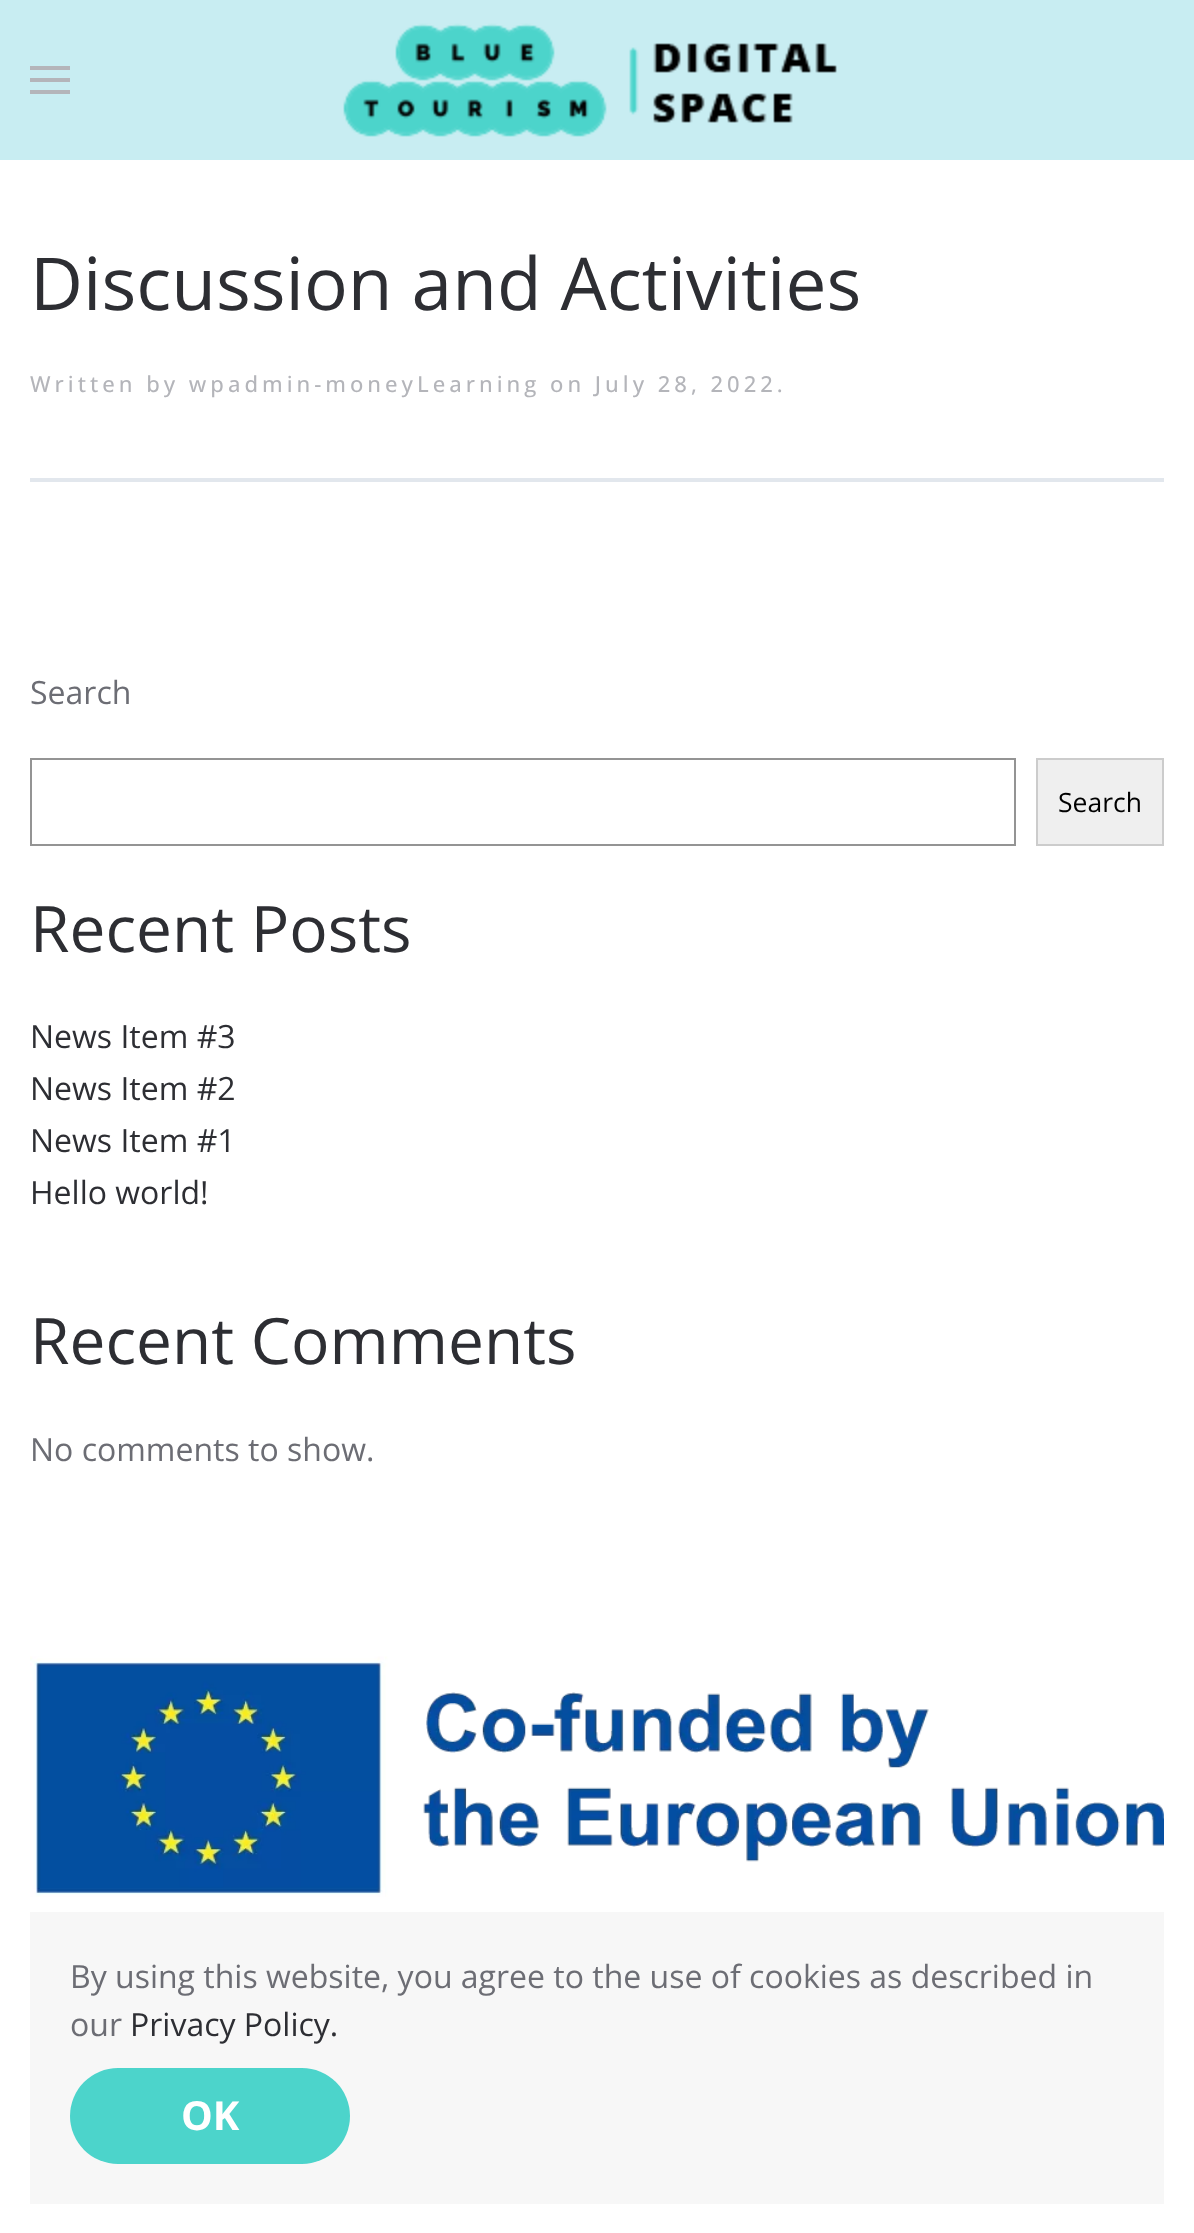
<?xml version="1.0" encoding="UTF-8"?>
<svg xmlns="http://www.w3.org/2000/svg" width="1194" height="2233">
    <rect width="100%" height="100%" fill="#FFFFFF"/>
    <rect x="0" y="0" width="1194" height="160" fill="#C8EDF2"/>
    <rect x="30" y="66" width="40" height="4" fill="#B4B5BA"/>
    <rect x="30" y="78" width="40" height="4" fill="#B4B5BA"/>
    <rect x="30" y="90" width="40" height="4" fill="#B4B5BA"/>
    <image x="343" y="23" width="494" height="114" href="img_01.png"/>
    <text x="30" y="310" font-family="Open Sans" font-size="73" fill="#2D2E33">Discussion and Activities</text>
    <text x="30" y="392" font-family="Open Sans" font-size="22" font-weight="500" letter-spacing="4" fill="#B4B5BA">Written by wpadmin-moneyLearning on July 28, 2022.</text>
    <rect x="30" y="478" width="1134" height="4" fill="#E2E7ED"/>
    <text x="30" y="704" font-family="Open Sans" font-size="32" fill="#6C6D74">Search</text>
    <rect x="31" y="759" width="984" height="86" fill="none" stroke="#949494" stroke-width="2"/>
    <rect x="1037" y="759" width="126" height="86" fill="#EFEFEF" stroke="#CCCCCC" stroke-width="2"/>
    <text x="1058" y="812" font-family="Open Sans" font-size="26.5" fill="#000000">Search</text>
    <text x="30" y="952" font-family="Open Sans" font-size="64" fill="#2D2E33">Recent Posts</text>
    <text font-family="Open Sans" font-size="32" fill="#2D2E33">
        <tspan x="30" y="1048">News Item #3</tspan>
        <tspan x="30" y="1100">News Item #2</tspan>
        <tspan x="30" y="1152">News Item #1</tspan>
        <tspan x="30" y="1204">Hello world!</tspan>
    </text>
    <text x="30" y="1364" font-family="Open Sans" font-size="64" fill="#2D2E33">Recent Comments</text>
    <text x="30" y="1461" font-family="Open Sans" font-size="32" fill="#6C6D74">No comments to show.</text>
    <image x="30" y="1656" width="1134" height="241" href="img_02.png"/>
    <rect x="30" y="1912" width="1134" height="292" fill="#F7F7F7"/>
    <text font-family="Open Sans" font-size="32" fill="#6C6D74">
        <tspan x="70" y="1988">By using this website, you agree to the use of cookies as described in</tspan>
        <tspan x="70" y="2036">our</tspan>
    </text>
    <text x="130" y="2036" font-family="Open Sans" font-size="32" fill="#2D2E33">Privacy Policy.</text>
    <rect x="70" y="2068" width="280" height="96" rx="48" fill="#4CD4CB"/>
    <text x="181" y="2130" font-family="Open Sans" font-size="40" font-weight="700" fill="#FFFFFF">OK</text>
</svg>
